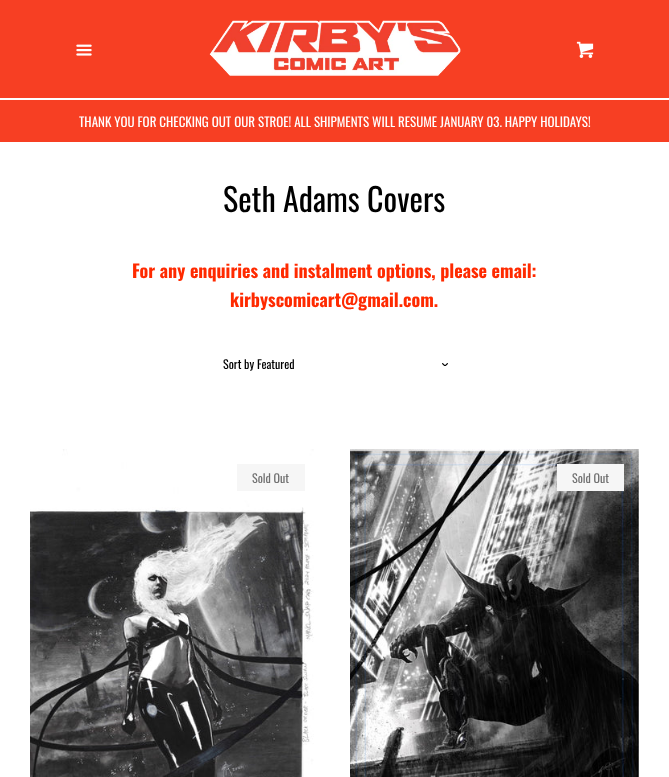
<?xml version="1.0" encoding="UTF-8"?>
<svg xmlns="http://www.w3.org/2000/svg" width="669" height="777">
    <rect width="100%" height="100%" fill="#F73F23"/>
    <rect x="0" y="98" width="669" height="2" fill="#FFFFFF"/>
    <image x="76" y="44" width="16" height="12" href="img_01.png"/>
    <image x="209" y="20" width="252" height="56" href="img_02.png"/>
    <image x="576" y="41" width="18" height="17" href="img_03.png"/>
    <rect x="0" y="142" width="669" height="635" fill="#FFFFFF"/>
    <text x="79" y="127" font-family="Oswald" font-size="13" fill="#FFFFFF">THANK YOU FOR CHECKING OUT OUR STROE! ALL SHIPMENTS WILL RESUME JANUARY 03. HAPPY HOLIDAYS!</text>
    <text x="223" y="212" font-family="Oswald" font-size="32" fill="#000000">Seth Adams Covers</text>
    <text x="132" y="278" font-family="Oswald" font-size="18" font-weight="700" fill="#FF2A00">For any enquiries and instalment options, please email:</text>
    <text x="230" y="307" font-family="Oswald" font-size="18" font-weight="700" fill="#FF2A00">kirbyscomicart@gmail.com.</text>
    <text x="223" y="369" font-family="Oswald" font-size="12" fill="#000000">Sort by Featured</text>
    <image x="442" y="363" width="6" height="3" href="img_04.png"/>
    <image x="30" y="449" width="284" height="328" href="img_05.png"/>
    <rect x="237" y="464" width="68" height="27" fill="#F6F6F6"/>
    <text x="252" y="483" font-family="Oswald" font-size="12" fill="#717171">Sold Out</text>
    <image x="350" y="449" width="289" height="328" href="img_06.png"/>
    <rect x="557" y="464" width="67" height="27" fill="#F6F6F6"/>
    <text x="572" y="483" font-family="Oswald" font-size="12" fill="#717171">Sold Out</text>
</svg>
